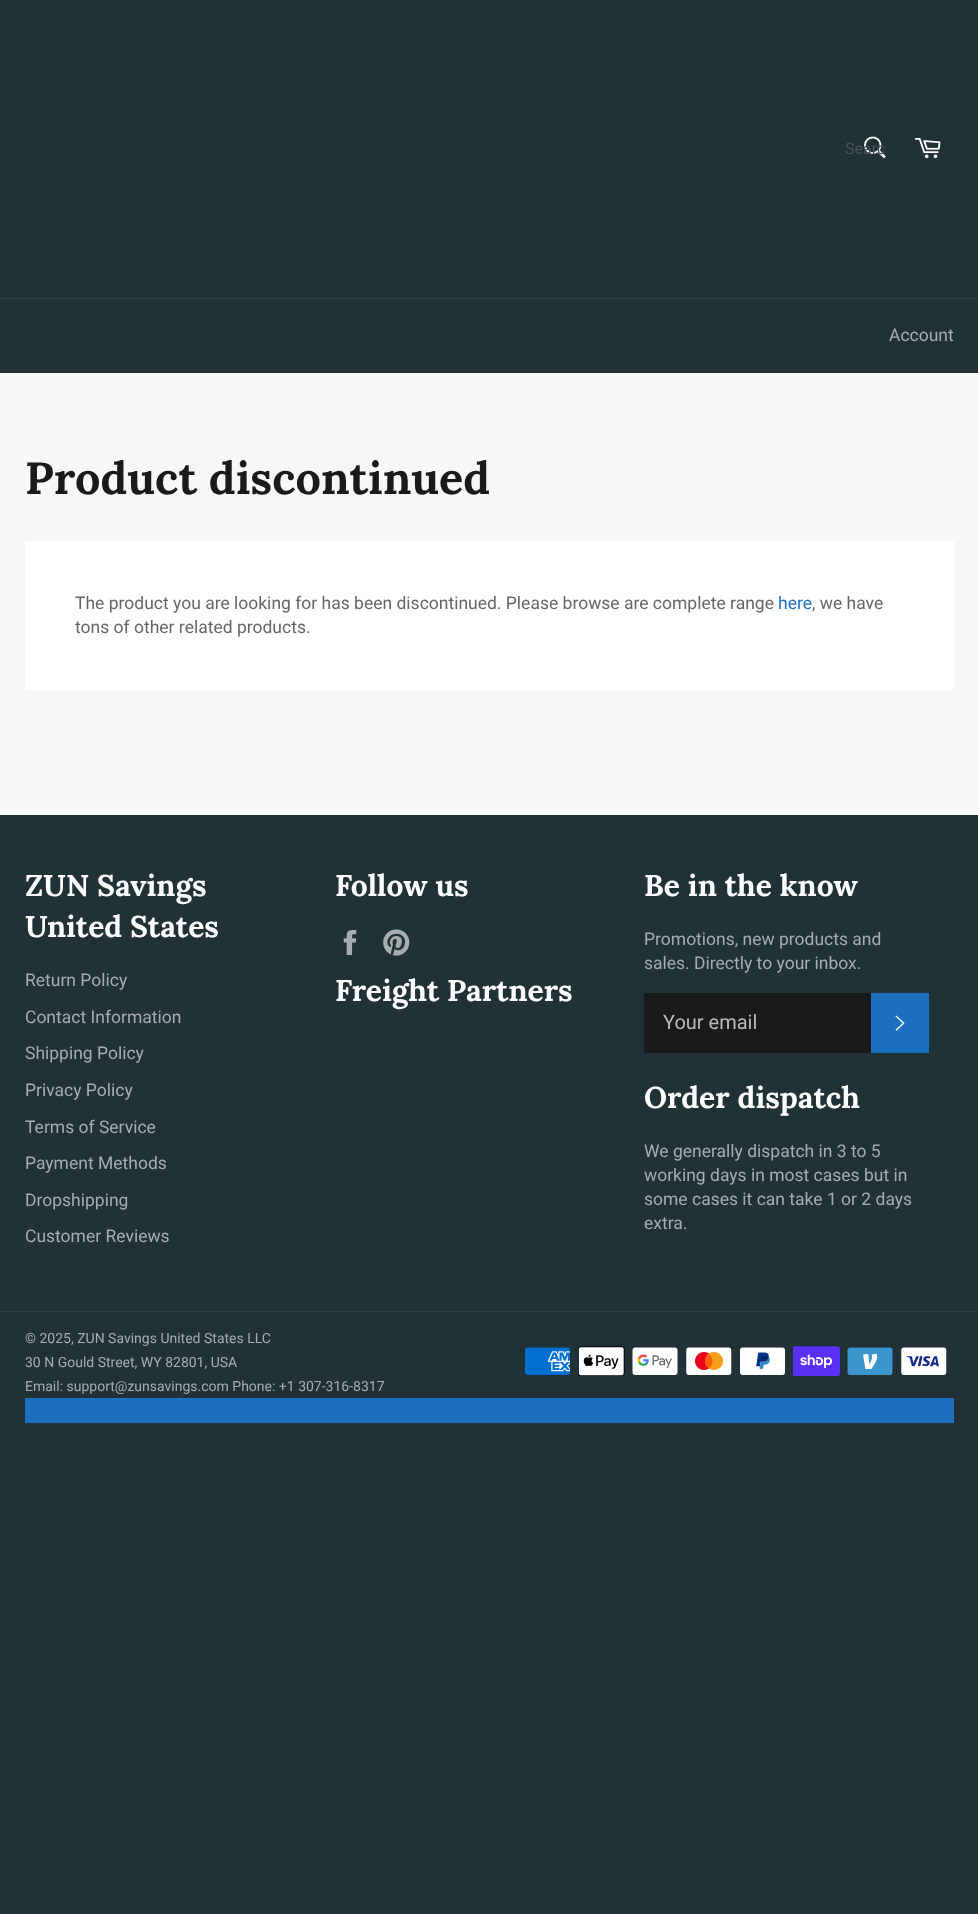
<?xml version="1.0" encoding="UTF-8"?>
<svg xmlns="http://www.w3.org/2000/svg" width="978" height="1914">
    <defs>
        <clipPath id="clip1"><rect x="845" y="140" width="40" height="19"/></clipPath>
    </defs>
    <rect width="100%" height="100%" fill="#213236"/>
    <rect x="0" y="373" width="978" height="442" fill="#F7F7F7"/>
    <image x="864" y="136" width="22" height="23" href="img_01.png"/>
    <g clip-path="url(#clip1)">
        <text x="845" y="154" font-family="Roboto" font-size="16" fill="#455356">Searc</text>
    </g>
    <image x="914" y="138" width="27" height="21" href="img_02.png"/>
    <rect x="0" y="298" width="978" height="1" fill="#2B4146"/>
    <text x="889" y="341" font-family="Roboto" font-size="17.5" fill="#A6ADAF">Account</text>
    <text x="25" y="494" font-family="Lora" font-size="45" font-weight="700" fill="#1A1A1A">Product discontinued</text>
    <rect x="25" y="541" width="929" height="149" fill="#FFFFFF"/>
    <text x="75" y="609" font-family="Roboto" font-size="17.5" fill="#666666">The product you are looking for has been discontinued. Please browse are complete range</text>
    <text x="778" y="609" font-family="Roboto" font-size="17.5" fill="#1D70C0">here</text>
    <text x="812" y="609" font-family="Roboto" font-size="17.5" fill="#666666">, we have</text>
    <text x="75" y="633" font-family="Roboto" font-size="17.5" fill="#666666">tons of other related products.</text>
    <text font-family="Lora" font-size="30" font-weight="700" fill="#FFFFFF">
        <tspan x="25" y="896">ZUN Savings</tspan>
        <tspan x="25" y="937">United States</tspan>
    </text>
    <text x="25" y="986" font-family="Roboto" font-size="17.5" fill="#A6ADAF">Return Policy</text>
    <text x="25" y="1023" font-family="Roboto" font-size="17.5" fill="#A6ADAF">Contact Information</text>
    <text x="25" y="1059" font-family="Roboto" font-size="17.5" fill="#A6ADAF">Shipping Policy</text>
    <text x="25" y="1096" font-family="Roboto" font-size="17.5" fill="#A6ADAF">Privacy Policy</text>
    <text x="25" y="1133" font-family="Roboto" font-size="17.5" fill="#A6ADAF">Terms of Service</text>
    <text x="25" y="1169" font-family="Roboto" font-size="17.5" fill="#A6ADAF">Payment Methods</text>
    <text x="25" y="1206" font-family="Roboto" font-size="17.5" fill="#A6ADAF">Dropshipping</text>
    <text x="25" y="1242" font-family="Roboto" font-size="17.5" fill="#A6ADAF">Customer Reviews</text>
    <text x="335" y="896" font-family="Lora" font-size="30" font-weight="700" fill="#FFFFFF">Follow us</text>
    <image x="343" y="930" width="14" height="25" href="img_03.png"/>
    <image x="383" y="929" width="27" height="27" href="img_04.png"/>
    <text x="335" y="1001" font-family="Lora" font-size="30" font-weight="700" fill="#FFFFFF">Freight Partners</text>
    <text x="644" y="896" font-family="Lora" font-size="30" font-weight="700" fill="#FFFFFF">Be in the know</text>
    <text font-family="Roboto" font-size="17.5" fill="#A6ADAF">
        <tspan x="644" y="945">Promotions, new products and</tspan>
        <tspan x="644" y="969">sales. Directly to your inbox.</tspan>
    </text>
    <rect x="644" y="993" width="227" height="60" fill="#1A1A1A"/>
    <text x="663" y="1029" font-family="Roboto" font-size="20" fill="#BABABA">Your email</text>
    <rect x="871" y="993" width="58" height="60" fill="#1D70C0"/>
    <image x="895" y="1015" width="10" height="16" href="img_05.png"/>
    <text x="644" y="1108" font-family="Lora" font-size="30" font-weight="700" fill="#FFFFFF">Order dispatch</text>
    <text font-family="Roboto" font-size="17.5" fill="#A6ADAF">
        <tspan x="644" y="1157">We generally dispatch in 3 to 5</tspan>
        <tspan x="644" y="1181">working days in most cases but in</tspan>
        <tspan x="644" y="1205">some cases it can take 1 or 2 days</tspan>
        <tspan x="644" y="1229">extra.</tspan>
    </text>
    <rect x="0" y="1311" width="978" height="1" fill="#2B4146"/>
    <text font-family="Roboto" font-size="14" fill="#A6ADAF">
        <tspan x="25" y="1343">© 2025, ZUN Savings United States LLC</tspan>
        <tspan x="25" y="1367">30 N Gould Street, WY 82801, USA</tspan>
        <tspan x="25" y="1391">Email: support@zunsavings.com Phone: +1 307-316-8317</tspan>
    </text>
    <image x="525" y="1347" width="45" height="28" href="img_06.png"/>
    <image x="578" y="1346" width="47" height="30" href="img_07.png"/>
    <image x="632" y="1347" width="46" height="28" href="img_08.png"/>
    <image x="686" y="1347" width="46" height="28" href="img_09.png"/>
    <image x="740" y="1347" width="45" height="28" href="img_10.png"/>
    <image x="793" y="1346" width="47" height="30" href="img_11.png"/>
    <image x="847" y="1347" width="46" height="28" href="img_12.png"/>
    <image x="901" y="1347" width="46" height="28" href="img_13.png"/>
    <rect x="25" y="1398" width="929" height="25" fill="#1D70C0"/>
</svg>
